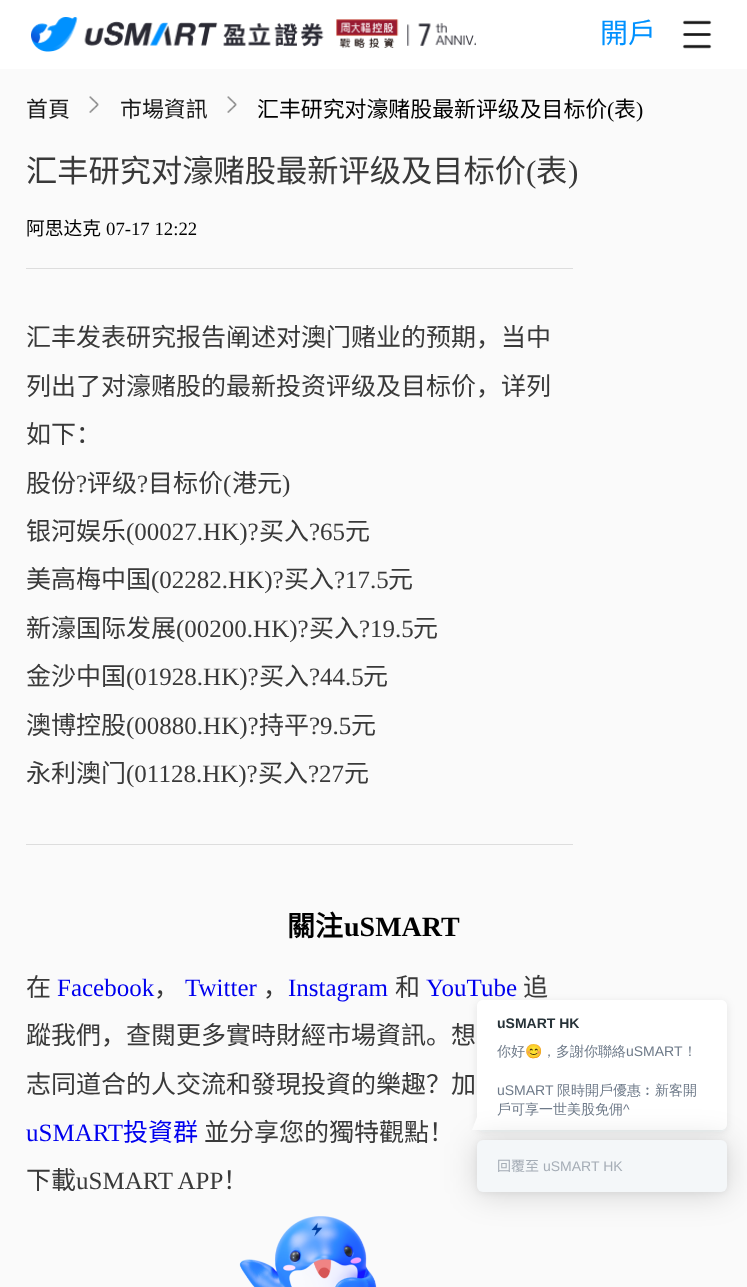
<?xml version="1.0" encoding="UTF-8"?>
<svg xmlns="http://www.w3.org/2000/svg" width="747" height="1287">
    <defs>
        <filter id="blur1" x="-50%" y="-200%" width="200%" height="500%"><feGaussianBlur stdDeviation="4"/></filter>
        <filter id="blur2" x="-50%" y="-200%" width="200%" height="500%"><feGaussianBlur stdDeviation="16"/></filter>
        <filter id="blur3" x="-50%" y="-200%" width="200%" height="500%"><feGaussianBlur stdDeviation="3"/></filter>
    </defs>
    <rect width="100%" height="100%" fill="#FFFFFF"/>
    <image x="31" y="17" width="445" height="35" href="img_01.png"/>
    <text x="600" y="43" font-family="Noto Sans CJK SC" font-size="28" fill="#0091FF">開戶</text>
    <image x="682" y="20" width="30" height="29" href="img_02.png"/>
    <rect x="0" y="69" width="747" height="1218" fill="#FAFAFA"/>
    <text x="26" y="117" font-family="Noto Sans CJK SC" font-size="21.9" fill="#191919">首頁</text>
    <image x="89" y="96" width="10" height="17" href="img_03.png"/>
    <text x="120" y="117" font-family="Noto Sans CJK SC" font-size="21.9" fill="#191919">市場資訊</text>
    <image x="227" y="96" width="10" height="17" href="img_03.png"/>
    <text x="257" y="117" font-family="Noto Sans CJK SC" font-size="21.9" fill="#000000">汇丰研究对濠赌股最新评级及目标价</text>
    <text x="607" y="117" font-family="Liberation Serif" font-size="21.9" fill="#000000">(</text>
    <text x="614" y="117" font-family="Noto Sans CJK SC" font-size="21.9" fill="#000000">表</text>
    <text x="636" y="117" font-family="Liberation Serif" font-size="21.9" fill="#000000">)</text>
    <text x="26" y="182" font-family="Noto Sans CJK SC" font-size="31.25" fill="#393939">汇丰研究对濠赌股最新评级及目标价</text>
    <text x="526" y="182" font-family="Liberation Serif" font-size="31.25" fill="#393939">(</text>
    <text x="536" y="182" font-family="Noto Sans CJK SC" font-size="31.25" fill="#393939">表</text>
    <text x="568" y="182" font-family="Liberation Serif" font-size="31.25" fill="#393939">)</text>
    <text x="26" y="235" font-family="Noto Sans CJK SC" font-size="18.75" fill="#000000">阿思达克</text>
    <text x="106" y="235" font-family="Liberation Serif" font-size="18.75" fill="#000000">07-17 12:22</text>
    <rect x="26" y="268" width="547" height="1" fill="#DDDDDD"/>
    <rect x="26" y="844" width="547" height="1" fill="#DDDDDD"/>
    <text font-family="Noto Sans CJK SC" font-size="25" fill="#393939">
        <tspan x="26" y="346">汇丰发表研究报告阐述对澳门赌业的预期，当中</tspan>
        <tspan x="26" y="395">列出了对濠赌股的最新投资评级及目标价，详列</tspan>
        <tspan x="26" y="443">如下：</tspan>
        <tspan x="26" y="492">股份</tspan>
    </text>
    <text x="76" y="492" font-family="Liberation Serif" font-size="25" fill="#393939">?</text>
    <text x="87" y="492" font-family="Noto Sans CJK SC" font-size="25" fill="#393939">评级</text>
    <text x="137" y="492" font-family="Liberation Serif" font-size="25" fill="#393939">?</text>
    <text x="148" y="492" font-family="Noto Sans CJK SC" font-size="25" fill="#393939">目标价</text>
    <text x="223" y="492" font-family="Liberation Serif" font-size="25" fill="#393939">(</text>
    <text x="232" y="492" font-family="Noto Sans CJK SC" font-size="25" fill="#393939">港元</text>
    <text x="282" y="492" font-family="Liberation Serif" font-size="25" fill="#393939">)</text>
    <text x="26" y="540" font-family="Noto Sans CJK SC" font-size="25" fill="#393939">银河娱乐</text>
    <text x="126" y="540" font-family="Liberation Serif" font-size="25" fill="#393939">(00027.HK)?</text>
    <text x="259" y="540" font-family="Noto Sans CJK SC" font-size="25" fill="#393939">买入</text>
    <text x="309" y="540" font-family="Liberation Serif" font-size="25" fill="#393939">?65</text>
    <text x="345" y="540" font-family="Noto Sans CJK SC" font-size="25" fill="#393939">元</text>
    <text x="26" y="588" font-family="Noto Sans CJK SC" font-size="25" fill="#393939">美高梅中国</text>
    <text x="151" y="588" font-family="Liberation Serif" font-size="25" fill="#393939">(02282.HK)?</text>
    <text x="284" y="588" font-family="Noto Sans CJK SC" font-size="25" fill="#393939">买入</text>
    <text x="334" y="588" font-family="Liberation Serif" font-size="25" fill="#393939">?17.5</text>
    <text x="388" y="588" font-family="Noto Sans CJK SC" font-size="25" fill="#393939">元</text>
    <text x="26" y="637" font-family="Noto Sans CJK SC" font-size="25" fill="#393939">新濠国际发展</text>
    <text x="176" y="637" font-family="Liberation Serif" font-size="25" fill="#393939">(00200.HK)?</text>
    <text x="309" y="637" font-family="Noto Sans CJK SC" font-size="25" fill="#393939">买入</text>
    <text x="359" y="637" font-family="Liberation Serif" font-size="25" fill="#393939">?19.5</text>
    <text x="413" y="637" font-family="Noto Sans CJK SC" font-size="25" fill="#393939">元</text>
    <text x="26" y="685" font-family="Noto Sans CJK SC" font-size="25" fill="#393939">金沙中国</text>
    <text x="126" y="685" font-family="Liberation Serif" font-size="25" fill="#393939">(01928.HK)?</text>
    <text x="259" y="685" font-family="Noto Sans CJK SC" font-size="25" fill="#393939">买入</text>
    <text x="309" y="685" font-family="Liberation Serif" font-size="25" fill="#393939">?44.5</text>
    <text x="363" y="685" font-family="Noto Sans CJK SC" font-size="25" fill="#393939">元</text>
    <text x="26" y="734" font-family="Noto Sans CJK SC" font-size="25" fill="#393939">澳博控股</text>
    <text x="126" y="734" font-family="Liberation Serif" font-size="25" fill="#393939">(00880.HK)?</text>
    <text x="259" y="734" font-family="Noto Sans CJK SC" font-size="25" fill="#393939">持平</text>
    <text x="309" y="734" font-family="Liberation Serif" font-size="25" fill="#393939">?9.5</text>
    <text x="351" y="734" font-family="Noto Sans CJK SC" font-size="25" fill="#393939">元</text>
    <text x="26" y="782" font-family="Noto Sans CJK SC" font-size="25" fill="#393939">永利澳门</text>
    <text x="126" y="782" font-family="Liberation Serif" font-size="25" fill="#393939">(01128.HK)?</text>
    <text x="258" y="782" font-family="Noto Sans CJK SC" font-size="25" fill="#393939">买入</text>
    <text x="308" y="782" font-family="Liberation Serif" font-size="25" fill="#393939">?27</text>
    <text x="344" y="782" font-family="Noto Sans CJK SC" font-size="25" fill="#393939">元</text>
    <text x="287" y="936" font-family="Noto Sans CJK SC" font-size="28" font-weight="700" fill="#000000">關注</text>
    <text x="344" y="936" font-family="Liberation Serif" font-size="28" font-weight="700" fill="#000000">uSMART</text>
    <text x="26" y="996" font-family="Noto Sans CJK SC" font-size="25" fill="#393939">在</text>
    <text x="57" y="996" font-family="Liberation Serif" font-size="25" fill="#0000EE">Facebook</text>
    <text x="154" y="996" font-family="Noto Sans CJK SC" font-size="25" fill="#393939">，</text>
    <text x="185" y="996" font-family="Liberation Serif" font-size="25" fill="#0000EE">Twitter</text>
    <text x="263" y="996" font-family="Noto Sans CJK SC" font-size="25" fill="#393939">，</text>
    <text x="288" y="996" font-family="Liberation Serif" font-size="25" fill="#0000EE">Instagram</text>
    <text x="395" y="996" font-family="Noto Sans CJK SC" font-size="25" fill="#393939">和</text>
    <text x="426" y="996" font-family="Liberation Serif" font-size="25" fill="#0000EE">YouTube</text>
    <text x="523" y="996" font-family="Noto Sans CJK SC" font-size="25" fill="#393939">追</text>
    <text font-family="Noto Sans CJK SC" font-size="25" fill="#393939">
        <tspan x="26" y="1044">蹤我們，查閱更多實時財經市場資訊。想</tspan>
        <tspan x="26" y="1093">志同道合的人交流和發現投資的樂趣？加</tspan>
    </text>
    <text x="26" y="1141" font-family="Liberation Serif" font-size="25" fill="#0000EE">uSMART</text>
    <text x="123" y="1141" font-family="Noto Sans CJK SC" font-size="25" fill="#0000EE">投資群</text>
    <text x="204" y="1141" font-family="Noto Sans CJK SC" font-size="25" fill="#393939">並分享您的獨特觀點！</text>
    <text x="26" y="1189" font-family="Noto Sans CJK SC" font-size="25" fill="#393939">下載</text>
    <text x="76" y="1189" font-family="Liberation Serif" font-size="25" fill="#393939">uSMART APP</text>
    <text x="223" y="1189" font-family="Noto Sans CJK SC" font-size="25" fill="#393939">！</text>
    <image x="239" y="1216" width="138" height="71" href="img_04.png"/>
    <rect x="477" y="1002" width="250" height="130" rx="6" fill="#232F35" fill-opacity="0.09" filter="url(#blur1)"/>
    <path d="M 483 1000 H 721 C 724.5 1000 727 1002.5 727 1006 V 1124 C 727 1127.5 724.5 1130 721 1130 H 477 V 1006 C 477 1002.5 479.5 1000 483 1000 Z" fill="#FFFFFF"/>
    <text x="497" y="1028" font-family="Liberation Sans" font-size="14" font-weight="700" fill="#263238">uSMART HK</text>
    <text x="497" y="1056" font-family="WenQuanYi Zen Hei" font-size="14" font-weight="500" fill="#6E7A89">你好</text>
    <text x="525" y="1056" font-family="Noto Color Emoji" font-size="14" fill="#6E7A89">😊</text>
    <text x="542" y="1056" font-family="WenQuanYi Zen Hei" font-size="14" font-weight="500" fill="#6E7A89">，多謝你聯絡</text>
    <text x="626" y="1056" font-family="Liberation Sans" font-size="14" fill="#6E7A89">uSMART</text>
    <text x="683" y="1056" font-family="WenQuanYi Zen Hei" font-size="14" font-weight="500" fill="#6E7A89">！</text>
    <text x="497" y="1095" font-family="Liberation Sans" font-size="14" fill="#6E7A89">uSMART</text>
    <text x="557" y="1095" font-family="WenQuanYi Zen Hei" font-size="14" font-weight="500" fill="#6E7A89">限時開戶優惠︰新客開</text>
    <text x="497" y="1114" font-family="WenQuanYi Zen Hei" font-size="14" font-weight="500" fill="#6E7A89">戶可享一世美股免佣</text>
    <text x="623" y="1114" font-family="Liberation Sans" font-size="14" fill="#6E7A89">^</text>
    <path d="M 477 1130 H 472 L 477 1117 Z" fill="#FFFFFF"/>
    <rect x="477" y="1142" width="250" height="52" rx="6" fill="#000000" fill-opacity="0.16" filter="url(#blur2)"/>
    <rect x="477" y="1141" width="250" height="52" rx="6" fill="#000000" fill-opacity="0.06" filter="url(#blur3)"/>
    <rect x="477" y="1140" width="250" height="52" rx="6" fill="#F4F7F9"/>
    <text x="497" y="1171" font-family="Noto Sans CJK SC" font-size="14" fill="#A5ADB6">回覆至</text>
    <text x="543" y="1171" font-family="Liberation Sans" font-size="14" fill="#A5ADB6">uSMART HK</text>
</svg>
